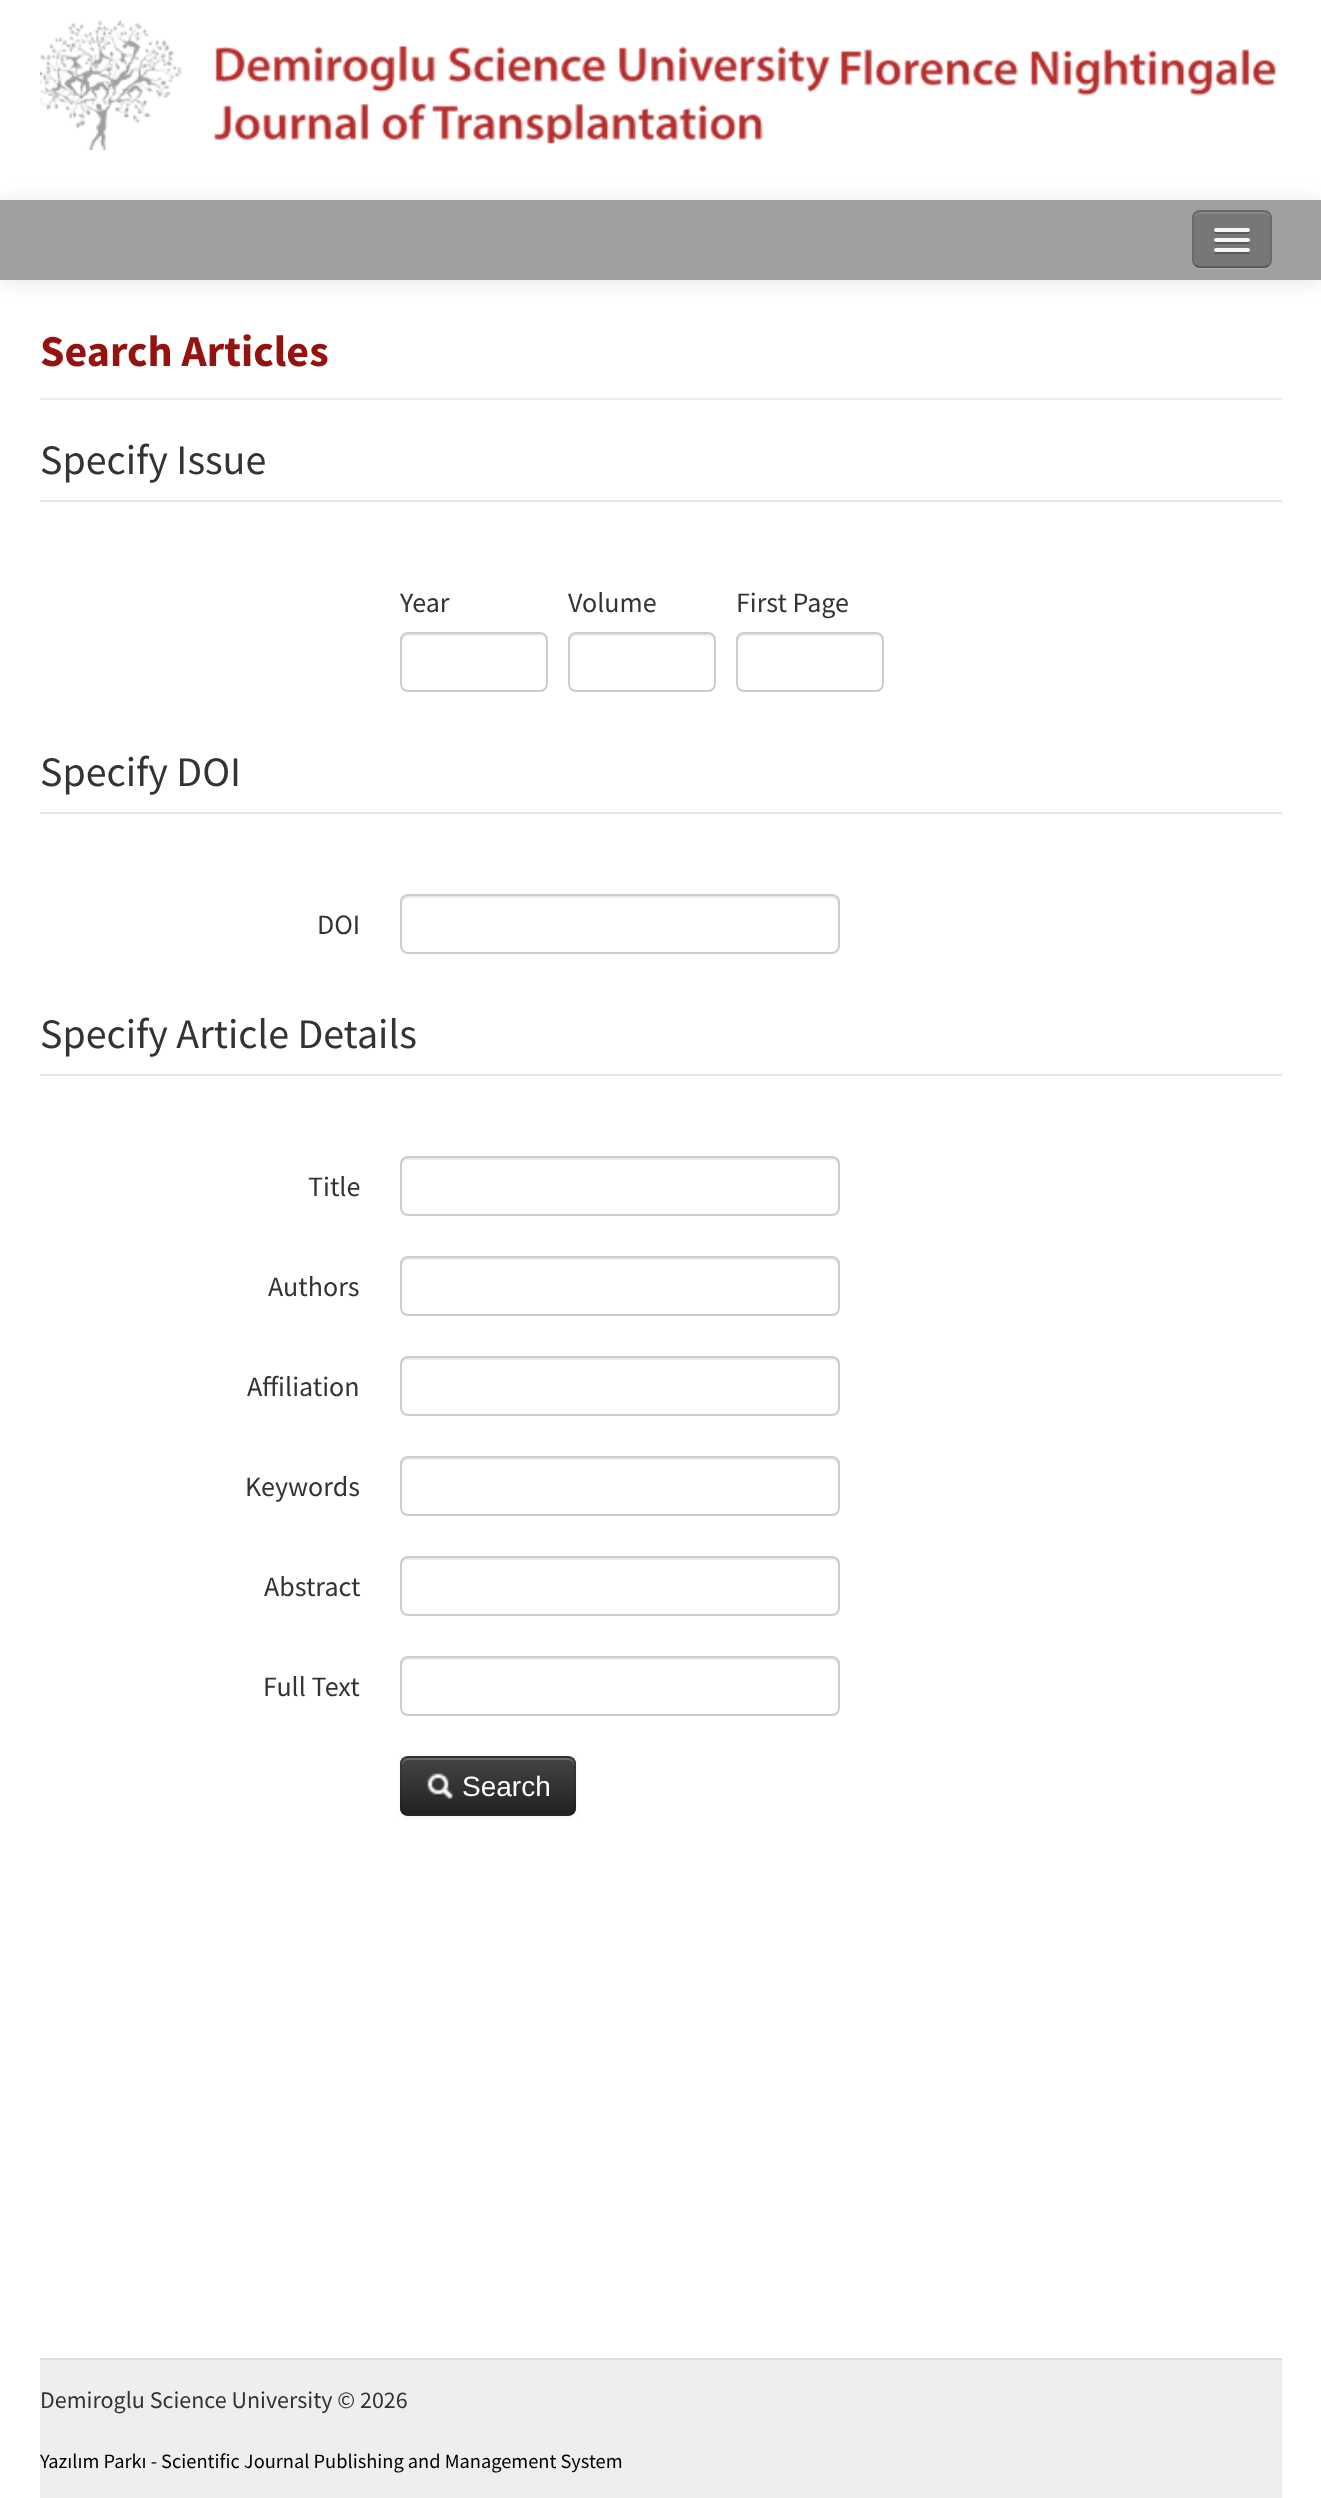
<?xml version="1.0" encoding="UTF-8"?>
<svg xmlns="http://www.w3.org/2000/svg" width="1321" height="2498">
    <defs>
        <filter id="blur1" x="-50%" y="-200%" width="200%" height="500%"><feGaussianBlur stdDeviation="10"/></filter>
        <filter id="blur2" x="-50%" y="-200%" width="200%" height="500%"><feGaussianBlur stdDeviation="2"/></filter>
        <clipPath id="clip1"><rect x="400" y="1756" width="176" height="60" rx="8"/></clipPath>
        <linearGradient id="g1" gradientUnits="userSpaceOnUse" x1="488" y1="1758" x2="488" y2="1814"><stop offset="0" stop-color="#444444"/><stop offset="1" stop-color="#222222"/></linearGradient>
    </defs>
    <rect width="100%" height="100%" fill="#FFFFFF"/>
    <image x="40" y="20" width="1237" height="130" href="img_01.png"/>
    <rect x="0" y="202" width="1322" height="80" fill="#000000" fill-opacity="0.1" filter="url(#blur1)"/>
    <rect x="0" y="200" width="1321" height="80" fill="#A09E9F"/>
    <path d="M 1192 260 C 1192 272 1201 270 1211 270 H 1253 C 1263 270 1272 272 1272 260 C 1272 264 1268 268 1264 268 H 1200 C 1196 268 1192 264 1192 260 Z" fill="#A7A5A6"/>
    <rect x="1192" y="210" width="80" height="58" rx="8" fill="#777777"/>
    <path d="M 1200 214 H 1264 C 1267 214 1270 217 1270 220 C 1270 210 1262 212 1253 212 H 1211 C 1202 212 1194 210 1194 220 C 1194 217 1197 214 1200 214 Z" fill="#858585"/>
    <path d="M 1269 265 C 1267.5 266.5 1266 267 1264 267 H 1200 C 1198 267 1196.5 266.5 1195 265" fill="none" stroke="#000000" stroke-opacity="0.25" stroke-width="2"/>
    <path d="M 1195 265 C 1193.5 263.5 1193 262 1193 260 V 218 C 1193 216 1193.5 214.5 1195 213 C 1196.5 211.5 1198 211 1200 211 H 1264 C 1266 211 1267.5 211.5 1269 213 C 1270.5 214.5 1271 216 1271 218 V 260 C 1271 262 1270.5 263.5 1269 265" fill="none" stroke="#000000" stroke-opacity="0.1" stroke-width="2"/>
    <path d="M 1214.5 231 C 1212 235 1221 234 1221.5 234 H 1242.5 C 1243 234 1252 235 1249.5 231 C 1249.5 231.5 1248.5 232 1248 232 H 1216 C 1215.5 232 1214.5 231.5 1214.5 231 Z" fill="#595959"/>
    <rect x="1214" y="228" width="36" height="4" rx="2" fill="#F5F5F5"/>
    <path d="M 1214.5 241 C 1212 245 1221 244 1221.5 244 H 1242.5 C 1243 244 1252 245 1249.5 241 C 1249.5 241.5 1248.5 242 1248 242 H 1216 C 1215.5 242 1214.5 241.5 1214.5 241 Z" fill="#595959"/>
    <rect x="1214" y="238" width="36" height="4" rx="2" fill="#F5F5F5"/>
    <path d="M 1214.5 251 C 1212 255 1221 254 1221.5 254 H 1242.5 C 1243 254 1252 255 1249.5 251 C 1249.5 251.5 1248.5 252 1248 252 H 1216 C 1215.5 252 1214.5 251.5 1214.5 251 Z" fill="#595959"/>
    <rect x="1214" y="248" width="36" height="4" rx="2" fill="#F5F5F5"/>
    <rect x="40" y="398" width="1242" height="2" fill="#EEEEEE"/>
    <text x="40" y="366" font-family="Source Sans Pro" font-size="44" font-weight="700" fill="#94120F">Search Articles</text>
    <rect x="40" y="500" width="1242" height="2" fill="#E5E5E5"/>
    <text x="40" y="474" font-family="Source Sans Pro" font-size="42" fill="#333333">Specify Issue</text>
    <text x="400" y="612" font-family="Source Sans Pro" font-size="28" fill="#333333">Year</text>
    <path d="M 408 636 H 540 C 543 636 546 639 546 642 V 640 C 546 637 543 634 540 634 H 408 C 405 634 402 637 402 640 V 642 C 402 639 405 636 408 636 Z" fill="#ECECEC"/>
    <rect x="401" y="633" width="146" height="58" rx="7" fill="none" stroke="#CCCCCC" stroke-width="2"/>
    <text x="568" y="612" font-family="Source Sans Pro" font-size="28" fill="#333333">Volume</text>
    <path d="M 576 636 H 708 C 711 636 714 639 714 642 V 640 C 714 637 711 634 708 634 H 576 C 573 634 570 637 570 640 V 642 C 570 639 573 636 576 636 Z" fill="#ECECEC"/>
    <rect x="569" y="633" width="146" height="58" rx="7" fill="none" stroke="#CCCCCC" stroke-width="2"/>
    <text x="736" y="612" font-family="Source Sans Pro" font-size="28" fill="#333333">First Page</text>
    <path d="M 744 636 H 876 C 879 636 882 639 882 642 V 640 C 882 637 879 634 876 634 H 744 C 741 634 738 637 738 640 V 642 C 738 639 741 636 744 636 Z" fill="#ECECEC"/>
    <rect x="737" y="633" width="146" height="58" rx="7" fill="none" stroke="#CCCCCC" stroke-width="2"/>
    <rect x="40" y="812" width="1242" height="2" fill="#E5E5E5"/>
    <text x="40" y="786" font-family="Source Sans Pro" font-size="42" fill="#333333">Specify DOI</text>
    <text x="317" y="934" font-family="Source Sans Pro" font-size="28" fill="#333333">DOI</text>
    <path d="M 408 898 H 832 C 835 898 838 901 838 904 V 902 C 838 899 835 896 832 896 H 408 C 405 896 402 899 402 902 V 904 C 402 901 405 898 408 898 Z" fill="#ECECEC"/>
    <rect x="401" y="895" width="438" height="58" rx="7" fill="none" stroke="#CCCCCC" stroke-width="2"/>
    <rect x="40" y="1074" width="1242" height="2" fill="#E5E5E5"/>
    <text x="40" y="1048" font-family="Source Sans Pro" font-size="42" fill="#333333">Specify Article Details</text>
    <text x="308" y="1196" font-family="Source Sans Pro" font-size="28" fill="#333333">Title</text>
    <path d="M 408 1160 H 832 C 835 1160 838 1163 838 1166 V 1164 C 838 1161 835 1158 832 1158 H 408 C 405 1158 402 1161 402 1164 V 1166 C 402 1163 405 1160 408 1160 Z" fill="#ECECEC"/>
    <rect x="401" y="1157" width="438" height="58" rx="7" fill="none" stroke="#CCCCCC" stroke-width="2"/>
    <text x="268" y="1296" font-family="Source Sans Pro" font-size="28" fill="#333333">Authors</text>
    <path d="M 408 1260 H 832 C 835 1260 838 1263 838 1266 V 1264 C 838 1261 835 1258 832 1258 H 408 C 405 1258 402 1261 402 1264 V 1266 C 402 1263 405 1260 408 1260 Z" fill="#ECECEC"/>
    <rect x="401" y="1257" width="438" height="58" rx="7" fill="none" stroke="#CCCCCC" stroke-width="2"/>
    <text x="247" y="1396" font-family="Source Sans Pro" font-size="28" fill="#333333">Affiliation</text>
    <path d="M 408 1360 H 832 C 835 1360 838 1363 838 1366 V 1364 C 838 1361 835 1358 832 1358 H 408 C 405 1358 402 1361 402 1364 V 1366 C 402 1363 405 1360 408 1360 Z" fill="#ECECEC"/>
    <rect x="401" y="1357" width="438" height="58" rx="7" fill="none" stroke="#CCCCCC" stroke-width="2"/>
    <text x="245" y="1496" font-family="Source Sans Pro" font-size="28" fill="#333333">Keywords</text>
    <path d="M 408 1460 H 832 C 835 1460 838 1463 838 1466 V 1464 C 838 1461 835 1458 832 1458 H 408 C 405 1458 402 1461 402 1464 V 1466 C 402 1463 405 1460 408 1460 Z" fill="#ECECEC"/>
    <rect x="401" y="1457" width="438" height="58" rx="7" fill="none" stroke="#CCCCCC" stroke-width="2"/>
    <text x="264" y="1596" font-family="Source Sans Pro" font-size="28" fill="#333333">Abstract</text>
    <path d="M 408 1560 H 832 C 835 1560 838 1563 838 1566 V 1564 C 838 1561 835 1558 832 1558 H 408 C 405 1558 402 1561 402 1564 V 1566 C 402 1563 405 1560 408 1560 Z" fill="#ECECEC"/>
    <rect x="401" y="1557" width="438" height="58" rx="7" fill="none" stroke="#CCCCCC" stroke-width="2"/>
    <text x="263" y="1696" font-family="Source Sans Pro" font-size="28" fill="#333333">Full Text</text>
    <path d="M 408 1660 H 832 C 835 1660 838 1663 838 1666 V 1664 C 838 1661 835 1658 832 1658 H 408 C 405 1658 402 1661 402 1664 V 1666 C 402 1663 405 1660 408 1660 Z" fill="#ECECEC"/>
    <rect x="401" y="1657" width="438" height="58" rx="7" fill="none" stroke="#CCCCCC" stroke-width="2"/>
    <rect x="400" y="1758" width="176" height="60" rx="8" fill="#000000" fill-opacity="0.05" filter="url(#blur2)"/>
    <rect x="400" y="1756" width="176" height="60" rx="8" fill="#363636"/>
    <g clip-path="url(#clip1)">
        <rect x="400" y="1758" width="176" height="56" fill="url(#g1)"/>
    </g>
    <path d="M 408 1760 H 568 C 571 1760 574 1763 574 1766 V 1764 C 574 1761 571 1758 568 1758 H 408 C 405 1758 402 1761 402 1764 V 1766 C 402 1763 405 1760 408 1760 Z" fill="#FFFFFF" fill-opacity="0.2"/>
    <path d="M 573 1813 C 571.5 1814.5 570 1815 568 1815 H 408 C 406 1815 404.5 1814.5 403 1813" fill="none" stroke="#000000" stroke-opacity="0.25" stroke-width="2"/>
    <path d="M 403 1813 C 400 1810 401 1804.5 401 1800.5 V 1786 C 401 1751 397 1757 434.5 1757 H 568 C 576 1757 575 1766 575 1771.5 V 1800.5 C 575 1804.5 576 1810 573 1813" fill="none" stroke="#000000" stroke-opacity="0.1" stroke-width="2"/>
    <image x="427" y="1773" width="27" height="27" href="img_02.png"/>
    <text x="462" y="1796" font-family="Liberation Sans" font-size="28" fill="#FFFFFF">Search</text>
    <rect x="40" y="2360" width="1242" height="138" fill="#EEEEEE"/>
    <rect x="40" y="2358" width="1242" height="2" fill="#DDDDDD"/>
    <text x="40" y="2408" font-family="Source Sans Pro" font-size="24" fill="#333333">Demiroglu Science University © 2026</text>
    <text x="40" y="2468" font-family="Source Sans Pro" font-size="20.4" fill="#000000">Yazılım Parkı - Scientific Journal Publishing and Management System</text>
</svg>
